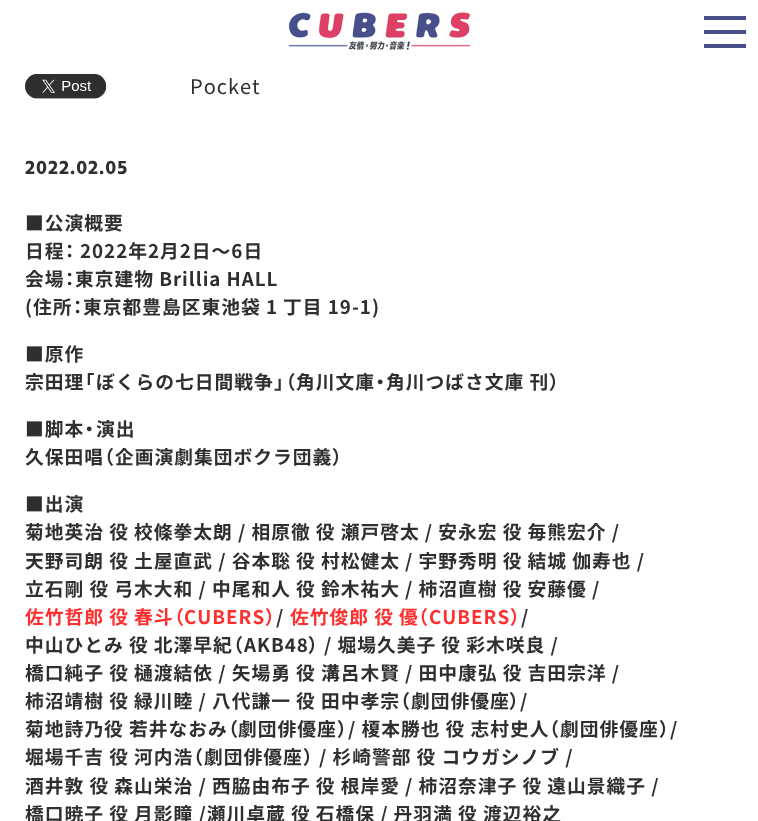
<?xml version="1.0" encoding="UTF-8"?>
<svg xmlns="http://www.w3.org/2000/svg" width="758" height="821">
    <style>*{font-kerning:none!important;font-variant-ligatures:none!important}</style>
    <rect width="100%" height="100%" fill="#FFFFFF"/>
    <image x="288" y="12" width="183" height="38" href="img_01.png"/>
    <rect x="704" y="16" width="42" height="4" fill="#47508B"/>
    <rect x="704" y="30" width="42" height="4" fill="#47508B"/>
    <rect x="704" y="44" width="42" height="4" fill="#47508B"/>
    <image x="25" y="74" width="82" height="25" href="img_02.png"/>
    <text x="190" y="94" font-family="Noto Sans JP" font-size="20" letter-spacing="1" fill="#2F2F2F">Pocket</text>
    <text x="25" y="174" font-family="Hind" font-size="20" font-weight="700" letter-spacing="1" fill="#2F2F2F">2022.02.05</text>
    <text font-family="Noto Sans JP" font-size="18.75" font-weight="700" letter-spacing="1" fill="#2F2F2F">
        <tspan x="25" y="230">■公演概要</tspan>
        <tspan x="25" y="258">日程</tspan>
    </text>
    <text x="65" y="258" font-family="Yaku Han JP" font-size="18.75" font-weight="700" letter-spacing="1" fill="#2F2F2F">：</text>
    <text x="80" y="258" font-family="Noto Sans JP" font-size="18.75" font-weight="700" letter-spacing="1" fill="#2F2F2F">2022年2月2日〜6日</text>
    <text x="25" y="286" font-family="Noto Sans JP" font-size="18.75" font-weight="700" letter-spacing="1" fill="#2F2F2F">会場</text>
    <text x="65" y="286" font-family="Yaku Han JP" font-size="18.75" font-weight="700" letter-spacing="1" fill="#2F2F2F">：</text>
    <text x="75" y="286" word-spacing="-0.1" font-family="Noto Sans JP" font-size="18.75" font-weight="700" letter-spacing="1" fill="#2F2F2F">東京建物 Brillia HALL</text>
    <text x="25" y="314" font-family="Noto Sans JP" font-size="18.75" font-weight="700" letter-spacing="1" fill="#2F2F2F">(住所</text>
    <text x="73" y="314" font-family="Yaku Han JP" font-size="18.75" font-weight="700" letter-spacing="1" fill="#2F2F2F">：</text>
    <text x="83" y="314" word-spacing="-0.1" font-family="Noto Sans JP" font-size="18.75" font-weight="700" letter-spacing="1" fill="#2F2F2F">東京都豊島区東池袋 1 丁目 19-1)</text>
    <text font-family="Noto Sans JP" font-size="18.75" font-weight="700" letter-spacing="1" fill="#2F2F2F">
        <tspan x="25" y="361">■原作</tspan>
        <tspan x="25" y="389">宗田理</tspan>
    </text>
    <text x="84" y="389" font-family="Yaku Han JP" font-size="18.75" font-weight="700" letter-spacing="1" fill="#2F2F2F">「</text>
    <text x="96" y="389" font-family="Noto Sans JP" font-size="18.75" font-weight="700" letter-spacing="1" fill="#2F2F2F">ぼくらの七日間戦争</text>
    <text x="274" y="389" font-family="Yaku Han JP" font-size="18.75" font-weight="700" letter-spacing="1" fill="#2F2F2F">」（</text>
    <text x="296" y="389" font-family="Noto Sans JP" font-size="18.75" font-weight="700" letter-spacing="1" fill="#2F2F2F">角川文庫</text>
    <text x="375" y="389" font-family="Yaku Han JP" font-size="18.75" font-weight="700" letter-spacing="1" fill="#2F2F2F">・</text>
    <text x="386" y="389" word-spacing="-0.1" font-family="Noto Sans JP" font-size="18.75" font-weight="700" letter-spacing="1" fill="#2F2F2F">角川つばさ文庫 刊</text>
    <text x="549" y="389" font-family="Yaku Han JP" font-size="18.75" font-weight="700" letter-spacing="1" fill="#2F2F2F">）</text>
    <text x="25" y="436" font-family="Noto Sans JP" font-size="18.75" font-weight="700" letter-spacing="1" fill="#2F2F2F">■脚本</text>
    <text x="84" y="436" font-family="Yaku Han JP" font-size="18.75" font-weight="700" letter-spacing="1" fill="#2F2F2F">・</text>
    <text x="96" y="436" font-family="Noto Sans JP" font-size="18.75" font-weight="700" letter-spacing="1" fill="#2F2F2F">演出</text>
    <text x="25" y="464" font-family="Noto Sans JP" font-size="18.75" font-weight="700" letter-spacing="1" fill="#2F2F2F">久保田唱</text>
    <text x="104" y="464" font-family="Yaku Han JP" font-size="18.75" font-weight="700" letter-spacing="1" fill="#2F2F2F">（</text>
    <text x="115" y="464" font-family="Noto Sans JP" font-size="18.75" font-weight="700" letter-spacing="1" fill="#2F2F2F">企画演劇集団ボクラ団義</text>
    <text x="332" y="464" font-family="Yaku Han JP" font-size="18.75" font-weight="700" letter-spacing="1" fill="#2F2F2F">）</text>
    <text font-family="Noto Sans JP" font-size="18.75" font-weight="700" letter-spacing="1" fill="#2F2F2F">
        <tspan x="25" y="511">■出演</tspan>
        <tspan x="25" y="539" word-spacing="-0.1">菊地英治 役 校條拳太朗 / 相原徹 役 瀬戸啓太 / 安永宏 役 毎熊宏介 /</tspan>
        <tspan x="25" y="568" word-spacing="-0.1">天野司朗 役 土屋直武 / 谷本聡 役 村松健太 / 宇野秀明 役 結城 伽寿也 /</tspan>
        <tspan x="25" y="596" word-spacing="-0.1">立石剛 役 弓木大和 / 中尾和人 役 鈴木祐大 / 柿沼直樹 役 安藤優 /</tspan>
    </text>
    <text x="25" y="624" word-spacing="-0.1" font-family="Noto Sans JP" font-size="18.75" font-weight="700" letter-spacing="1" fill="#FF2F2F">佐竹哲郎 役 春斗</text>
    <text x="174" y="624" font-family="Yaku Han JP" font-size="18.75" font-weight="700" letter-spacing="1" fill="#FF2F2F">（</text>
    <text x="184" y="624" font-family="Noto Sans JP" font-size="18.75" font-weight="700" letter-spacing="1" fill="#FF2F2F">CUBERS</text>
    <text x="265" y="624" font-family="Yaku Han JP" font-size="18.75" font-weight="700" letter-spacing="1" fill="#FF2F2F">）</text>
    <text x="276" y="624" font-family="Noto Sans JP" font-size="18.75" font-weight="700" letter-spacing="1" fill="#2F2F2F">/</text>
    <text x="290" y="624" word-spacing="-0.1" font-family="Noto Sans JP" font-size="18.75" font-weight="700" letter-spacing="1" fill="#FF2F2F">佐竹俊郎 役 優</text>
    <text x="418" y="624" font-family="Yaku Han JP" font-size="18.75" font-weight="700" letter-spacing="1" fill="#FF2F2F">（</text>
    <text x="429" y="624" font-family="Noto Sans JP" font-size="18.75" font-weight="700" letter-spacing="1" fill="#FF2F2F">CUBERS</text>
    <text x="510" y="624" font-family="Yaku Han JP" font-size="18.75" font-weight="700" letter-spacing="1" fill="#FF2F2F">）</text>
    <text x="521" y="624" font-family="Noto Sans JP" font-size="18.75" font-weight="700" letter-spacing="1" fill="#2F2F2F">/</text>
    <text x="25" y="652" word-spacing="-0.1" font-family="Noto Sans JP" font-size="18.75" font-weight="700" letter-spacing="1" fill="#2F2F2F">中山ひとみ 役 北澤早紀</text>
    <text x="233" y="652" font-family="Yaku Han JP" font-size="18.75" font-weight="700" letter-spacing="1" fill="#2F2F2F">（</text>
    <text x="244" y="652" font-family="Noto Sans JP" font-size="18.75" font-weight="700" letter-spacing="1" fill="#2F2F2F">AKB48</text>
    <text x="308" y="652" font-family="Yaku Han JP" font-size="18.75" font-weight="700" letter-spacing="1" fill="#2F2F2F">）</text>
    <text x="324" y="652" word-spacing="-0.1" font-family="Noto Sans JP" font-size="18.75" font-weight="700" letter-spacing="1" fill="#2F2F2F">/ 堀場久美子 役 彩木咲良 /</text>
    <text font-family="Noto Sans JP" font-size="18.75" font-weight="700" letter-spacing="1" fill="#2F2F2F">
        <tspan x="25" y="680" word-spacing="-0.1">橋口純子 役 樋渡結依 / 矢場勇 役 溝呂木賢 / 田中康弘 役 吉田宗洋 /</tspan>
        <tspan x="25" y="708" word-spacing="-0.1">柿沼靖樹 役 緑川睦 / 八代謙一 役 田中孝宗</tspan>
    </text>
    <text x="400" y="708" font-family="Yaku Han JP" font-size="18.75" font-weight="700" letter-spacing="1" fill="#2F2F2F">（</text>
    <text x="411" y="708" font-family="Noto Sans JP" font-size="18.75" font-weight="700" letter-spacing="1" fill="#2F2F2F">劇団俳優座</text>
    <text x="509" y="708" font-family="Yaku Han JP" font-size="18.75" font-weight="700" letter-spacing="1" fill="#2F2F2F">）</text>
    <text x="520" y="708" font-family="Noto Sans JP" font-size="18.75" font-weight="700" letter-spacing="1" fill="#2F2F2F">/</text>
    <text x="25" y="736" word-spacing="-0.1" font-family="Noto Sans JP" font-size="18.75" font-weight="700" letter-spacing="1" fill="#2F2F2F">菊地詩乃役 若井なおみ</text>
    <text x="228" y="736" font-family="Yaku Han JP" font-size="18.75" font-weight="700" letter-spacing="1" fill="#2F2F2F">（</text>
    <text x="238" y="736" font-family="Noto Sans JP" font-size="18.75" font-weight="700" letter-spacing="1" fill="#2F2F2F">劇団俳優座</text>
    <text x="337" y="736" font-family="Yaku Han JP" font-size="18.75" font-weight="700" letter-spacing="1" fill="#2F2F2F">）</text>
    <text x="348" y="736" word-spacing="-0.1" font-family="Noto Sans JP" font-size="18.75" font-weight="700" letter-spacing="1" fill="#2F2F2F">/ 榎本勝也 役 志村史人</text>
    <text x="549" y="736" font-family="Yaku Han JP" font-size="18.75" font-weight="700" letter-spacing="1" fill="#2F2F2F">（</text>
    <text x="560" y="736" font-family="Noto Sans JP" font-size="18.75" font-weight="700" letter-spacing="1" fill="#2F2F2F">劇団俳優座</text>
    <text x="659" y="736" font-family="Yaku Han JP" font-size="18.75" font-weight="700" letter-spacing="1" fill="#2F2F2F">）</text>
    <text x="670" y="736" font-family="Noto Sans JP" font-size="18.75" font-weight="700" letter-spacing="1" fill="#2F2F2F">/</text>
    <text x="25" y="764" word-spacing="-0.1" font-family="Noto Sans JP" font-size="18.75" font-weight="700" letter-spacing="1" fill="#2F2F2F">堀場千吉 役 河内浩</text>
    <text x="193" y="764" font-family="Yaku Han JP" font-size="18.75" font-weight="700" letter-spacing="1" fill="#2F2F2F">（</text>
    <text x="204" y="764" font-family="Noto Sans JP" font-size="18.75" font-weight="700" letter-spacing="1" fill="#2F2F2F">劇団俳優座</text>
    <text x="303" y="764" font-family="Yaku Han JP" font-size="18.75" font-weight="700" letter-spacing="1" fill="#2F2F2F">）</text>
    <text x="319" y="764" word-spacing="-0.1" font-family="Noto Sans JP" font-size="18.75" font-weight="700" letter-spacing="1" fill="#2F2F2F">/ 杉崎警部 役 コウガシノブ /</text>
    <text font-family="Noto Sans JP" font-size="18.75" font-weight="700" letter-spacing="1" fill="#2F2F2F">
        <tspan x="25" y="793" word-spacing="-0.1">酒井敦 役 森山栄治 / 西脇由布子 役 根岸愛 / 柿沼奈津子 役 遠山景織子 /</tspan>
        <tspan x="25" y="821" word-spacing="-0.1">橋口暁子 役 月影瞳 /瀬川卓蔵 役 石橋保 / 丹羽満 役 渡辺裕之</tspan>
    </text>
</svg>
